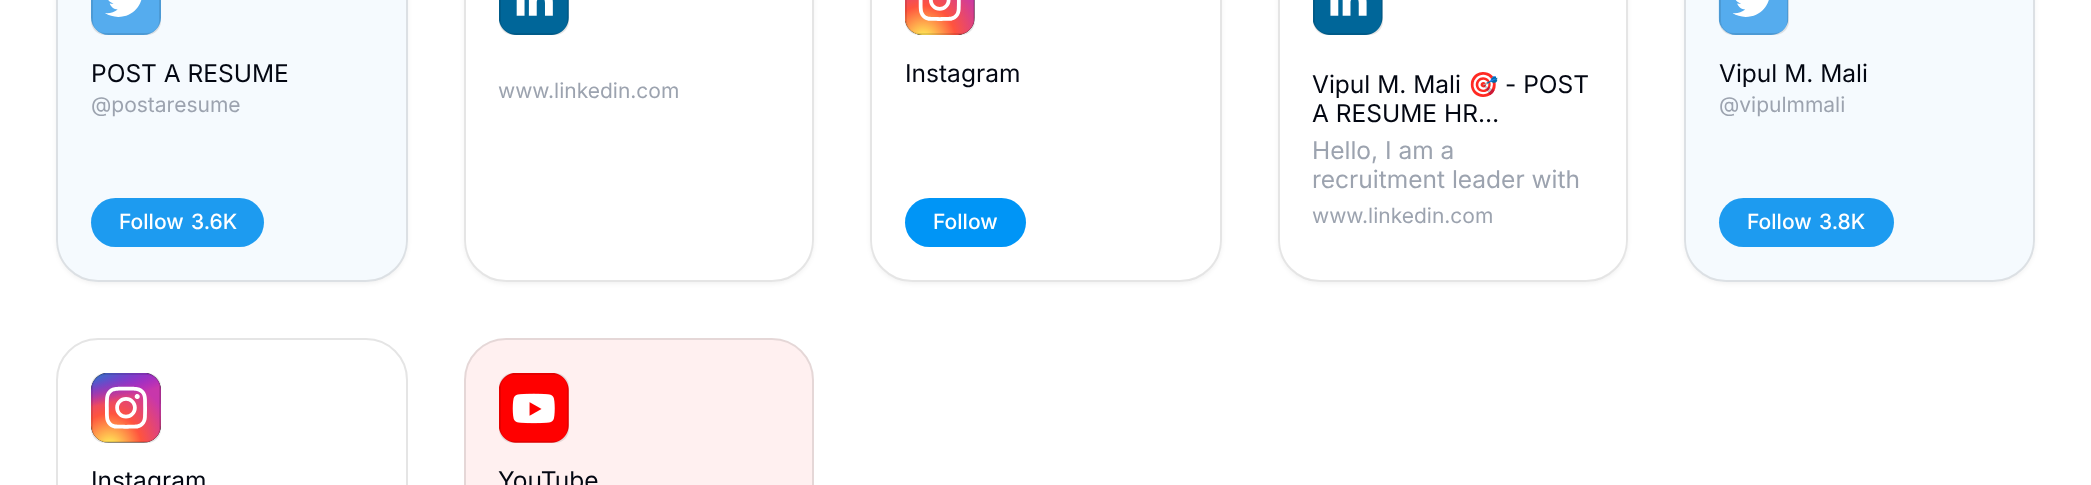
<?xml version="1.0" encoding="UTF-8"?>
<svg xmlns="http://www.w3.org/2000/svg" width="2091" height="485">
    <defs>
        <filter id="blur1" x="-50%" y="-200%" width="200%" height="500%"><feGaussianBlur stdDeviation="2"/></filter>
    </defs>
    <rect width="100%" height="100%" fill="#FFFFFF"/>
    <rect x="56" y="-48" width="352" height="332" rx="42" fill="#000000" fill-opacity="0.05" filter="url(#blur1)"/>
    <rect x="56" y="-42" width="352" height="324" rx="42" fill="#F5FAFE"/>
    <image x="91" y="0" width="70" height="35" href="img_01.png"/>
    <rect x="92" y="-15" width="68" height="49" rx="13" fill="none" stroke="#000000" stroke-opacity="0.1" stroke-width="2"/>
    <rect x="91" y="198" width="173" height="49" rx="24.5" fill="#1D9BF0"/>
    <rect x="57" y="-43" width="350" height="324" rx="41" fill="none" stroke="#000000" stroke-opacity="0.1" stroke-width="2"/>
    <text x="91" y="82" font-family="Inter" font-size="24.5" fill="#030712">POST A RESUME</text>
    <text x="91" y="112" font-family="Inter" font-size="21" fill="#9CA3AF">@postaresume</text>
    <text x="119" y="229" font-family="Inter" font-size="21" font-weight="500" fill="#FFFFFF">Follow</text>
    <text x="191" y="229" font-family="Inter" font-size="21" font-weight="500" fill="#FFFFFF">3.6K</text>
    <rect x="464" y="-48" width="350" height="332" rx="42" fill="#000000" fill-opacity="0.05" filter="url(#blur1)"/>
    <rect x="464" y="-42" width="350" height="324" rx="42" fill="#FFFFFF"/>
    <image x="499" y="0" width="70" height="35" href="img_02.png"/>
    <rect x="500" y="-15" width="68" height="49" rx="13" fill="none" stroke="#000000" stroke-opacity="0.1" stroke-width="2"/>
    <rect x="465" y="-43" width="348" height="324" rx="41" fill="none" stroke="#000000" stroke-opacity="0.1" stroke-width="2"/>
    <text x="498" y="98" font-family="Inter" font-size="21" fill="#9CA3AF">www.linkedin.com</text>
    <rect x="870" y="-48" width="352" height="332" rx="42" fill="#000000" fill-opacity="0.05" filter="url(#blur1)"/>
    <rect x="870" y="-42" width="352" height="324" rx="42" fill="#FFFFFF"/>
    <image x="905" y="0" width="70" height="35" href="img_03.png"/>
    <rect x="906" y="-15" width="68" height="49" rx="13" fill="none" stroke="#000000" stroke-opacity="0.1" stroke-width="2"/>
    <rect x="905" y="198" width="121" height="49" rx="24.5" fill="#0095F6"/>
    <rect x="871" y="-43" width="350" height="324" rx="41" fill="none" stroke="#000000" stroke-opacity="0.1" stroke-width="2"/>
    <text x="905" y="82" font-family="Inter" font-size="24.5" fill="#030712">Instagram</text>
    <text x="933" y="229" font-family="Inter" font-size="21" font-weight="500" fill="#FFFFFF">Follow</text>
    <rect x="1278" y="-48" width="350" height="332" rx="42" fill="#000000" fill-opacity="0.05" filter="url(#blur1)"/>
    <rect x="1278" y="-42" width="350" height="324" rx="42" fill="#FFFFFF"/>
    <image x="1313" y="0" width="70" height="35" href="img_04.png"/>
    <rect x="1314" y="-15" width="68" height="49" rx="13" fill="none" stroke="#000000" stroke-opacity="0.1" stroke-width="2"/>
    <rect x="1279" y="-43" width="348" height="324" rx="41" fill="none" stroke="#000000" stroke-opacity="0.1" stroke-width="2"/>
    <text x="1312" y="93" font-family="Inter" font-size="24.5" fill="#030712">Vipul M. Mali</text>
    <text x="1468" y="93" font-family="Noto Color Emoji" font-size="24.5" fill="#030712">🎯</text>
    <text x="1505" y="93" font-family="Inter" font-size="24.5" fill="#030712">- POST</text>
    <text x="1312" y="122" font-family="Inter" font-size="24.5" fill="#030712">A RESUME HR…</text>
    <text font-family="Inter" font-size="24.5" fill="#9CA3AF">
        <tspan x="1312" y="159">Hello, I am a</tspan>
        <tspan x="1312" y="188">recruitment leader with</tspan>
    </text>
    <text x="1312" y="223" font-family="Inter" font-size="21" fill="#9CA3AF">www.linkedin.com</text>
    <rect x="1684" y="-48" width="351" height="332" rx="42" fill="#000000" fill-opacity="0.05" filter="url(#blur1)"/>
    <rect x="1684" y="-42" width="351" height="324" rx="42" fill="#F5FAFE"/>
    <image x="1718" y="0" width="71" height="35" href="img_05.png"/>
    <rect x="1720" y="-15" width="68" height="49" rx="13" fill="none" stroke="#000000" stroke-opacity="0.1" stroke-width="2"/>
    <rect x="1719" y="198" width="175" height="49" rx="24.5" fill="#1D9BF0"/>
    <rect x="1685" y="-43" width="349" height="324" rx="41" fill="none" stroke="#000000" stroke-opacity="0.1" stroke-width="2"/>
    <text x="1719" y="82" font-family="Inter" font-size="24.5" fill="#030712">Vipul M. Mali</text>
    <text x="1719" y="112" font-family="Inter" font-size="21" fill="#9CA3AF">@vipulmmali</text>
    <text x="1747" y="229" font-family="Inter" font-size="21" font-weight="500" fill="#FFFFFF">Follow</text>
    <text x="1819" y="229" font-family="Inter" font-size="21" font-weight="500" fill="#FFFFFF">3.8K</text>
    <image x="91" y="373" width="70" height="70" href="img_06.png"/>
    <rect x="92" y="374" width="68" height="68" rx="13" fill="none" stroke="#000000" stroke-opacity="0.1" stroke-width="2"/>
    <rect x="57" y="339" width="350" height="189" rx="41" fill="none" stroke="#E5E5E5" stroke-width="2"/>
    <text x="91" y="489" font-family="Inter" font-size="24.5" fill="#030712">Instagram</text>
    <rect x="464" y="338" width="350" height="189" rx="42" fill="#FFF0F0"/>
    <image x="499" y="373" width="70" height="70" href="img_07.png"/>
    <rect x="500" y="374" width="68" height="68" rx="13" fill="none" stroke="#000000" stroke-opacity="0.1" stroke-width="2"/>
    <rect x="465" y="339" width="348" height="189" rx="41" fill="none" stroke="#000000" stroke-opacity="0.1" stroke-width="2"/>
    <text x="498" y="489" font-family="Inter" font-size="24.5" fill="#030712">YouTube</text>
</svg>
